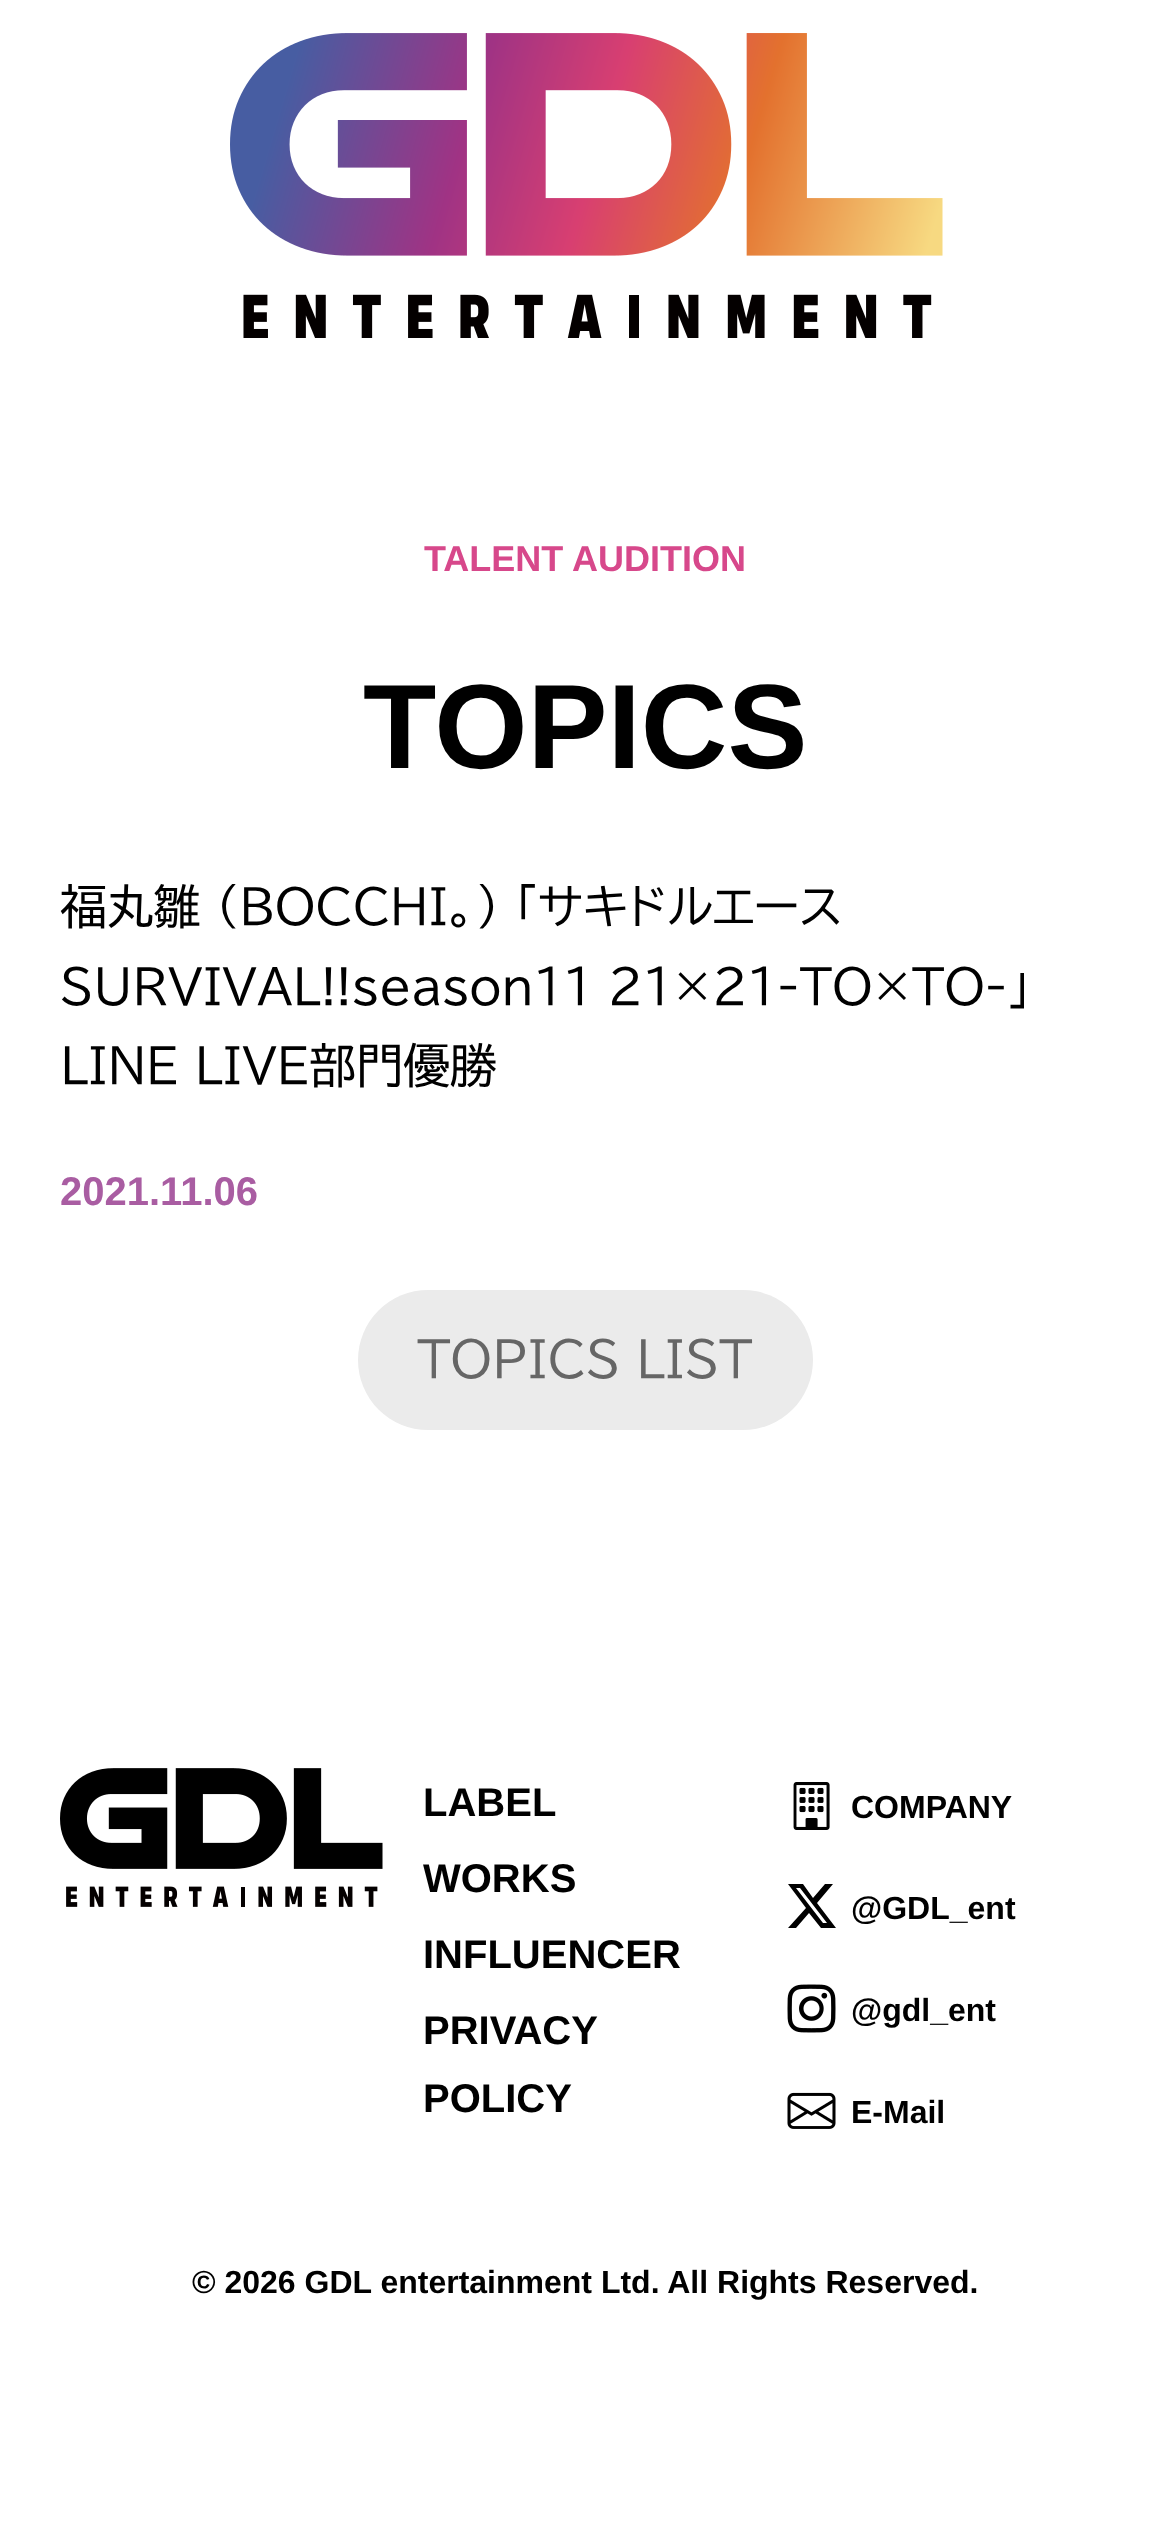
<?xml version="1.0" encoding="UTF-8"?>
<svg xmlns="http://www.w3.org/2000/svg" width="1169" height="2525">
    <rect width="100%" height="100%" fill="#FFFFFF"/>
    <image x="230" y="33" width="713" height="305" href="img_01.png"/>
    <text x="424" y="571" font-family="Liberation Sans" font-size="36" font-weight="700" fill="#D7488B">TALENT AUDITION</text>
    <text x="363" y="768" font-family="Liberation Sans" font-size="120" font-weight="700" fill="#000000">TOPICS</text>
    <text font-family="BIZ UDPGothic" font-size="46.8" fill="#000000">
        <tspan x="60" y="924">福丸雛 (BOCCHI。) 「サキドルエース</tspan>
        <tspan x="60" y="1004" word-spacing="-1">SURVIVAL!!season11 21×21-TO×TO-」</tspan>
        <tspan x="60" y="1083">LINE LIVE部門優勝</tspan>
    </text>
    <text x="60" y="1205" font-family="Liberation Sans" font-size="40" font-weight="700" fill="#A95DA2">2021.11.06</text>
    <rect x="358" y="1290" width="455" height="140" rx="70" fill="#EBEBEB"/>
    <text x="417" y="1377" font-family="BIZ UDPGothic" font-size="48" fill="#666666">TOPICS LIST</text>
    <image x="60" y="1768" width="323" height="139" href="img_02.png"/>
    <text font-family="Liberation Sans" font-size="40" font-weight="700" fill="#000000">
        <tspan x="423" y="1816">LABEL</tspan>
        <tspan x="423" y="1892">WORKS</tspan>
        <tspan x="423" y="1968">INFLUENCER</tspan>
        <tspan x="423" y="2044">PRIVACY</tspan>
        <tspan x="423" y="2112">POLICY</tspan>
    </text>
    <image x="793" y="1782" width="37" height="48" href="img_03.png"/>
    <text x="851" y="1818" font-family="Liberation Sans" font-size="32" font-weight="700" fill="#000000">COMPANY</text>
    <path d="M 825 1884 H 833 L 817 1903 L 836 1928 H 821 L 809 1913 L 796 1928 H 788 L 806 1908 L 788 1884 H 803 L 813 1898 Z M 823 1923 H 827 L 800 1888 H 796 Z" fill="#000000"/>
    <text x="851" y="1919" font-family="Liberation Sans" font-size="32" font-weight="700" fill="#000000">@GDL_ent</text>
    <image x="787" y="1984" width="49" height="49" href="img_04.png"/>
    <text x="851" y="2021" font-family="Liberation Sans" font-size="32" font-weight="700" fill="#000000">@gdl_ent</text>
    <image x="787" y="2092" width="49" height="37" href="img_05.png"/>
    <text x="851" y="2123" font-family="Liberation Sans" font-size="32" font-weight="700" fill="#000000">E-Mail</text>
    <text x="192" y="2293" font-family="Liberation Sans" font-size="32" font-weight="700" fill="#000000">© 2026 GDL entertainment Ltd. All Rights Reserved.</text>
</svg>
